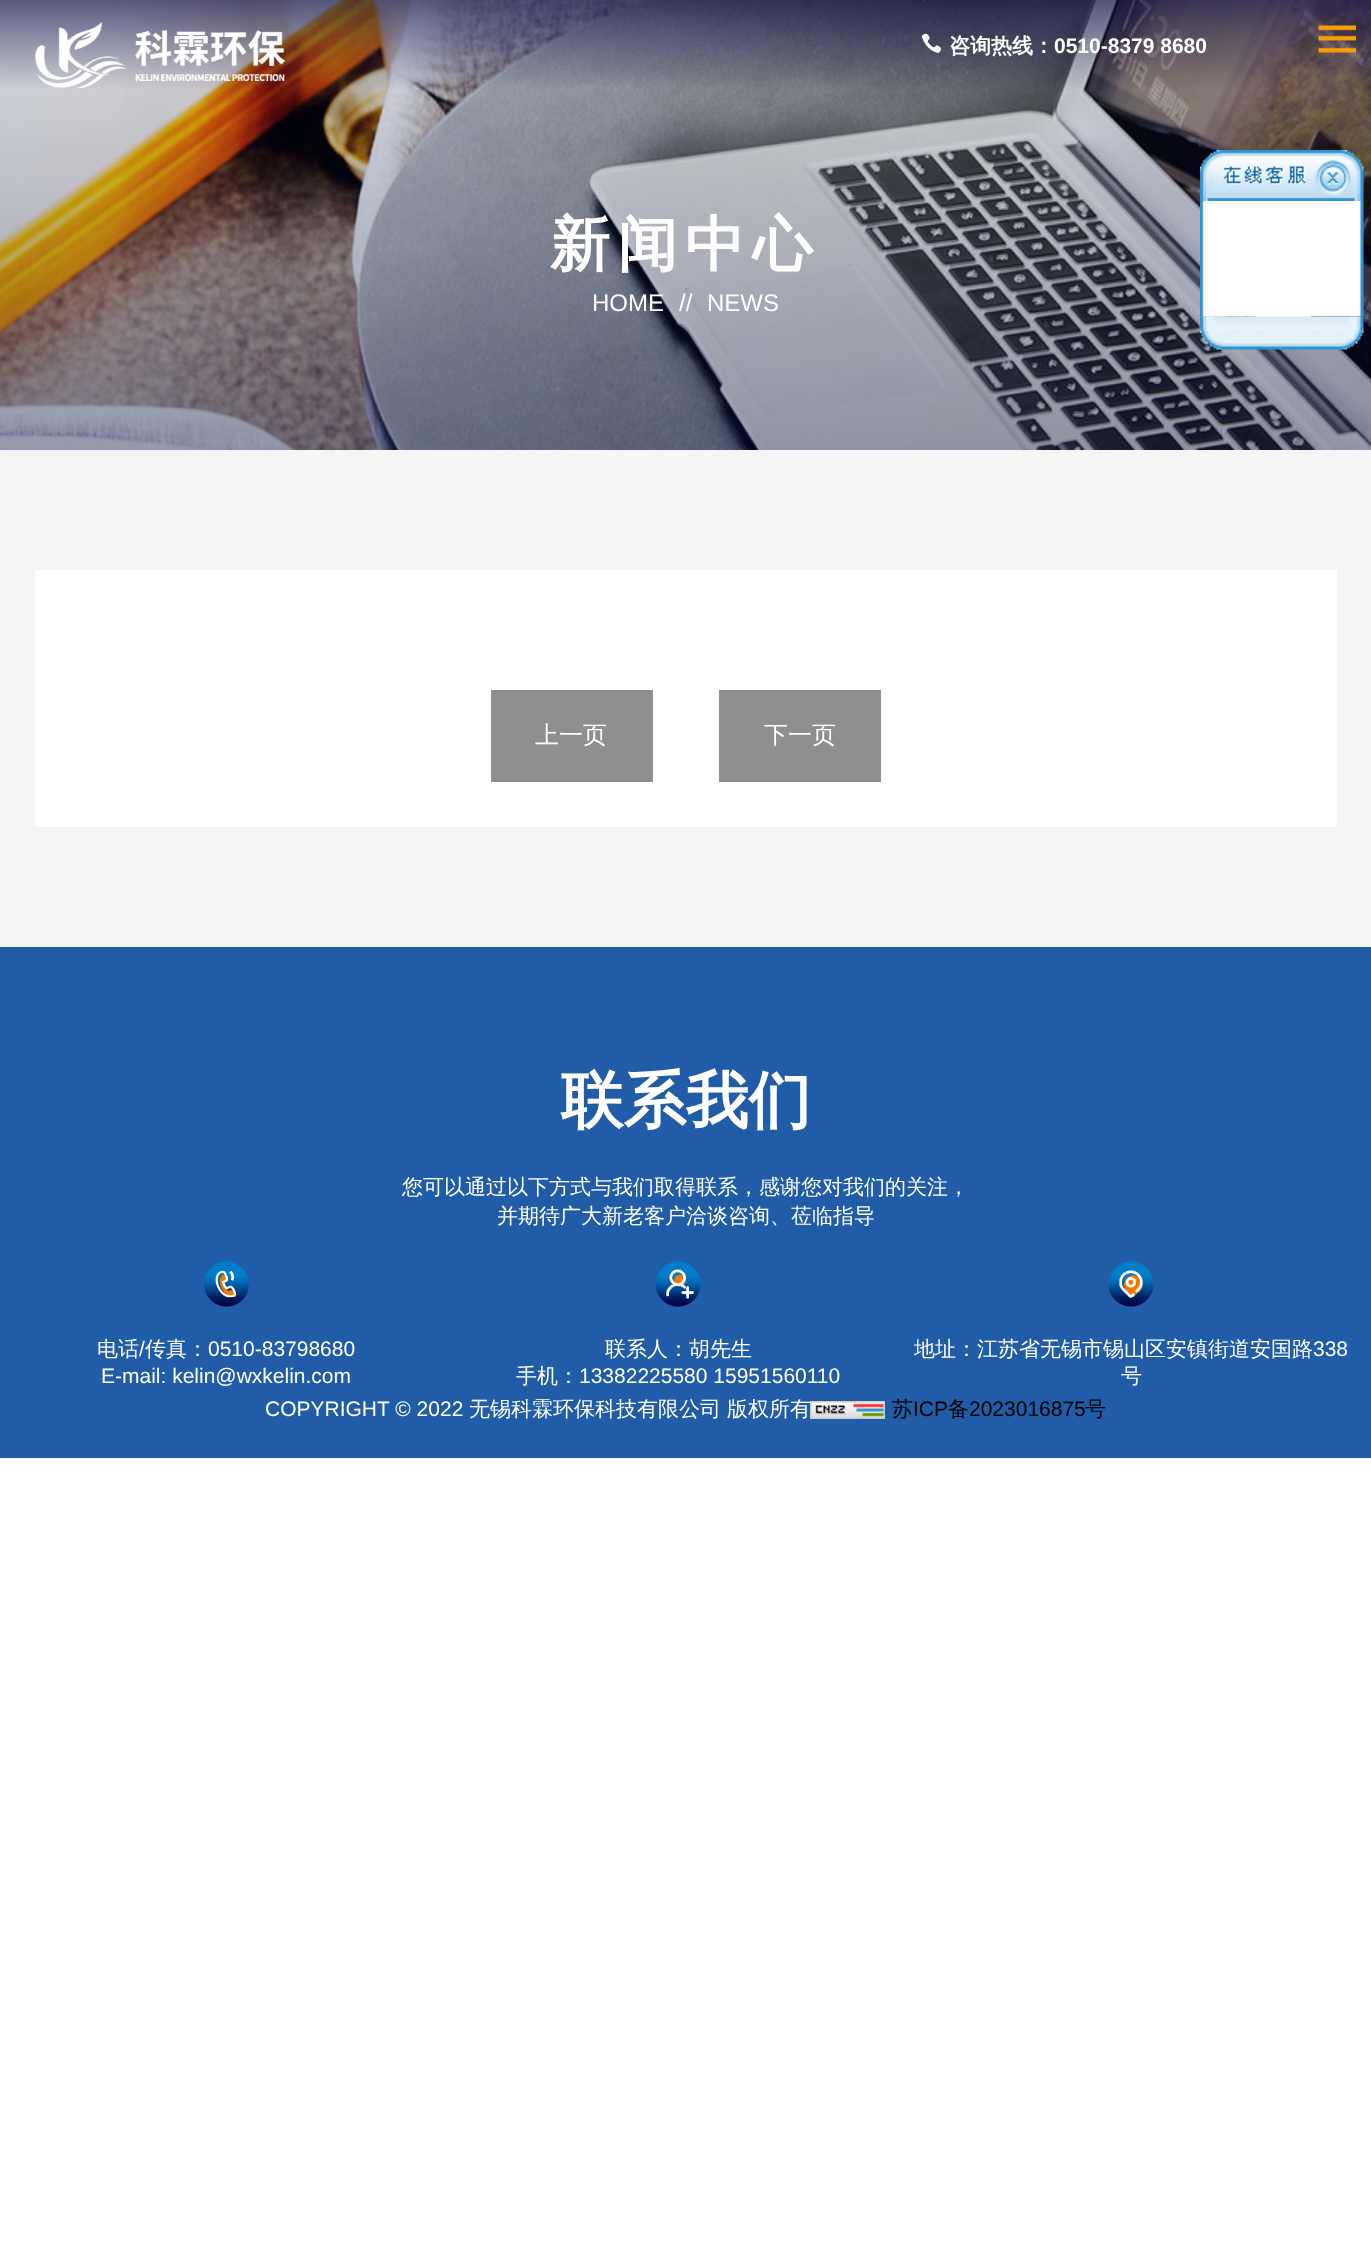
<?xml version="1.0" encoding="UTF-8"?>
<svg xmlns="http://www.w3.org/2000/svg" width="1371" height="2245">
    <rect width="100%" height="100%" fill="#FFFFFF"/>
    <image x="0" y="0" width="1371" height="450" href="img_04.png"/>
    <image x="35" y="22" width="251" height="67" href="img_01.png"/>
    <image x="921" y="33" width="21" height="20" href="img_02.png"/>
    <text x="949" y="53" font-family="WenQuanYi Zen Hei" font-size="21" font-weight="700" fill="#FFFFFF">咨询热线：</text>
    <text x="1054" y="53" font-family="Liberation Sans" font-size="21" font-weight="700" fill="#FFFFFF">0510-8379 8680</text>
    <image x="1318" y="25" width="38" height="28" href="img_03.png"/>
    <text x="550" y="265" font-family="WenQuanYi Zen Hei" font-size="60" font-weight="700" letter-spacing="7.5" fill="#FFFFFF">新闻中心</text>
    <text x="592" y="311" font-family="Liberation Sans" font-size="24" fill="#FFFFFF">HOME</text>
    <text x="679" y="311" font-family="Liberation Sans" font-size="24" fill="#FFFFFF">//</text>
    <text x="707" y="311" font-family="Liberation Sans" font-size="24" fill="#FFFFFF">NEWS</text>
    <image x="1200" y="150" width="164" height="51" href="img_05.png"/>
    <image x="1200" y="201" width="164" height="116" href="img_06.png"/>
    <rect x="1257" y="316" width="54" height="1" fill="#FFFFFF"/>
    <image x="1200" y="316" width="164" height="34" href="img_07.png"/>
    <rect x="0" y="450" width="1371" height="497" fill="#F5F5F5"/>
    <rect x="35" y="570" width="1302" height="257" fill="#FFFFFF"/>
    <rect x="491" y="690" width="162" height="92" fill="#8F8F8F"/>
    <text x="535" y="743" font-family="WenQuanYi Zen Hei" font-size="24" font-weight="500" fill="#FFFFFF">上一页</text>
    <rect x="719" y="690" width="162" height="92" fill="#8F8F8F"/>
    <text x="764" y="743" font-family="WenQuanYi Zen Hei" font-size="24" font-weight="500" fill="#FFFFFF">下一页</text>
    <rect x="0" y="947" width="1371" height="511" fill="#205CA7"/>
    <text x="561" y="1122" font-family="WenQuanYi Zen Hei" font-size="62.5" font-weight="700" fill="#FFFFFF">联系我们</text>
    <text x="402" y="1194" font-family="WenQuanYi Zen Hei" font-size="21" font-weight="500" fill="#FFFFFF">您可以通过以下方式与我们取得联系，感谢您对我们的关注，</text>
    <text x="497" y="1223" font-family="WenQuanYi Zen Hei" font-size="21" font-weight="500" fill="#FFFFFF">并期待广大新老客户洽谈咨询、莅临指导</text>
    <image x="204" y="1261" width="45" height="46" href="img_08.png"/>
    <text x="97" y="1356" font-family="WenQuanYi Zen Hei" font-size="21" font-weight="500" fill="#FFFFFF">电话</text>
    <text x="139" y="1356" font-family="Liberation Sans" font-size="21" fill="#FFFFFF">/</text>
    <text x="145" y="1356" font-family="WenQuanYi Zen Hei" font-size="21" font-weight="500" fill="#FFFFFF">传真：</text>
    <text x="208" y="1356" font-family="Liberation Sans" font-size="21" fill="#FFFFFF">0510-83798680</text>
    <text x="101" y="1383" font-family="Liberation Sans" font-size="21" fill="#FFFFFF">E-mail: kelin@wxkelin.com</text>
    <image x="655" y="1261" width="46" height="46" href="img_09.png"/>
    <text x="605" y="1356" font-family="WenQuanYi Zen Hei" font-size="21" font-weight="500" fill="#FFFFFF">联系人：胡先生</text>
    <text x="516" y="1383" font-family="WenQuanYi Zen Hei" font-size="21" font-weight="500" fill="#FFFFFF">手机：</text>
    <text x="579" y="1383" font-family="Liberation Sans" font-size="21" fill="#FFFFFF">13382225580 15951560110</text>
    <image x="1108" y="1261" width="46" height="46" href="img_10.png"/>
    <text x="914" y="1356" font-family="WenQuanYi Zen Hei" font-size="21" font-weight="500" fill="#FFFFFF">地址：江苏省无锡市锡山区安镇街道安国路</text>
    <text x="1313" y="1356" font-family="Liberation Sans" font-size="21" fill="#FFFFFF">338</text>
    <text x="1121" y="1383" font-family="WenQuanYi Zen Hei" font-size="21" font-weight="500" fill="#FFFFFF">号</text>
    <text x="265" y="1416" font-family="Liberation Sans" font-size="21" fill="#FFFFFF">COPYRIGHT © 2022</text>
    <text x="469" y="1416" font-family="WenQuanYi Zen Hei" font-size="21" font-weight="500" fill="#FFFFFF">无锡科霖环保科技有限公司</text>
    <text x="727" y="1416" font-family="WenQuanYi Zen Hei" font-size="21" font-weight="500" fill="#FFFFFF">版权所有</text>
    <image x="810" y="1401" width="75" height="18" href="img_11.png"/>
    <text x="892" y="1416" font-family="WenQuanYi Zen Hei" font-size="21" font-weight="500" fill="#000000">苏</text>
    <text x="913" y="1416" font-family="Liberation Sans" font-size="21" fill="#000000">ICP</text>
    <text x="948" y="1416" font-family="WenQuanYi Zen Hei" font-size="21" font-weight="500" fill="#000000">备</text>
    <text x="969" y="1416" font-family="Liberation Sans" font-size="21" fill="#000000">2023016875</text>
    <text x="1085" y="1416" font-family="WenQuanYi Zen Hei" font-size="21" font-weight="500" fill="#000000">号</text>
</svg>
